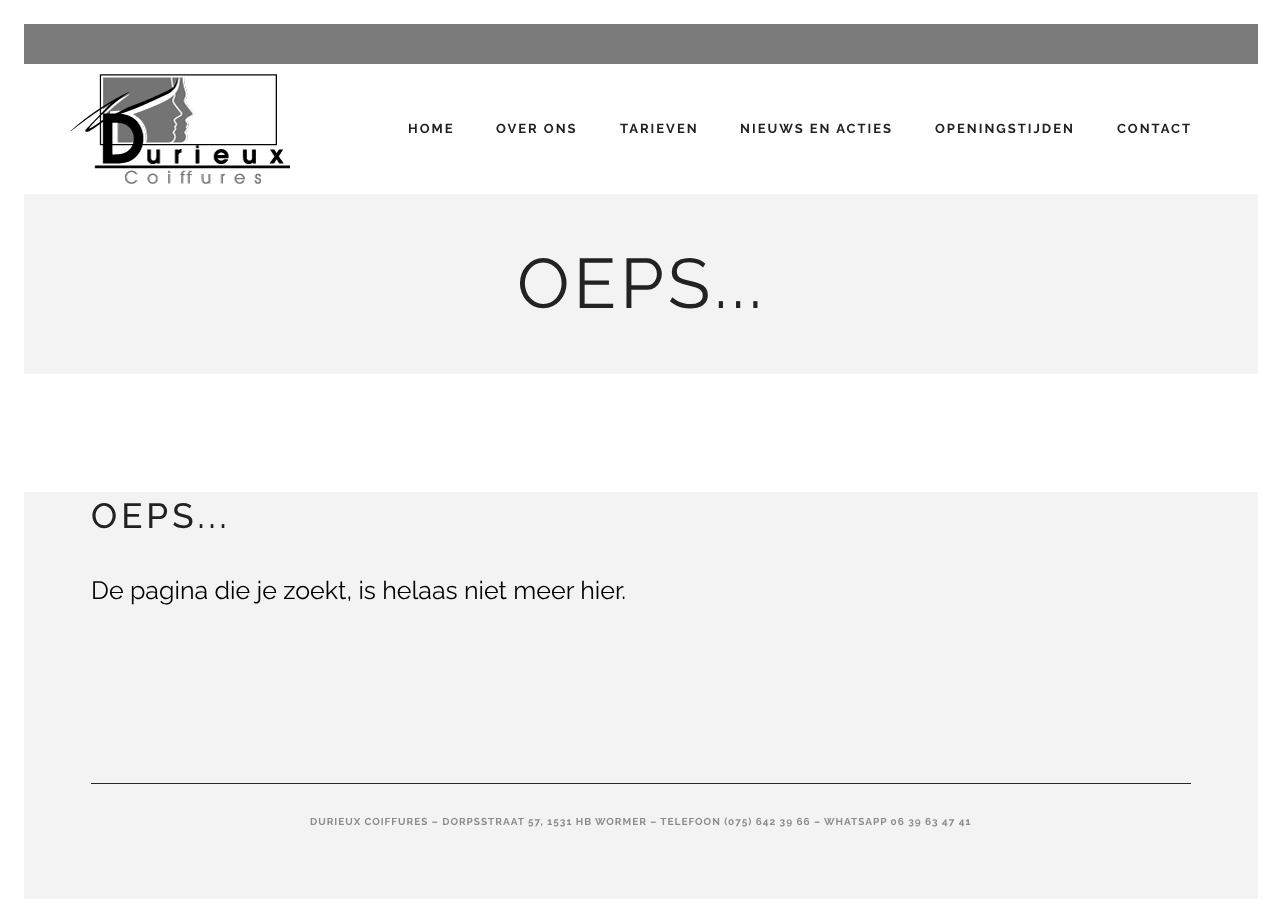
<?xml version="1.0" encoding="UTF-8"?>
<svg xmlns="http://www.w3.org/2000/svg" width="1282" height="923">
    <rect width="100%" height="100%" fill="#F3F3F3"/>
    <rect x="24" y="24" width="1234" height="40" fill="#7A7A7A"/>
    <rect x="24" y="64" width="1234" height="130" fill="#FFFFFF"/>
    <image x="70" y="74" width="220" height="110" href="img_01.png"/>
    <text x="408" y="133" font-family="Raleway" font-size="13" font-weight="700" letter-spacing="2" fill="#222222">HOME</text>
    <text x="496" y="133" font-family="Raleway" font-size="13" font-weight="700" letter-spacing="2" fill="#222222">OVER ONS</text>
    <text x="620" y="133" font-family="Raleway" font-size="13" font-weight="700" letter-spacing="2" fill="#222222">TARIEVEN</text>
    <text x="740" y="133" font-family="Raleway" font-size="13" font-weight="700" letter-spacing="2" fill="#222222">NIEUWS EN ACTIES</text>
    <text x="935" y="133" font-family="Raleway" font-size="13" font-weight="700" letter-spacing="2" fill="#222222">OPENINGSTIJDEN</text>
    <text x="1117" y="133" font-family="Raleway" font-size="13" font-weight="700" letter-spacing="2" fill="#222222">CONTACT</text>
    <rect x="0" y="0" width="1282" height="24" fill="#FFFFFF"/>
    <rect x="0" y="24" width="24" height="875" fill="#FFFFFF"/>
    <rect x="24" y="374" width="1234" height="118" fill="#FFFFFF"/>
    <text x="517" y="308" font-family="Raleway" font-size="70" letter-spacing="4" fill="#222222">OEPS...</text>
    <text x="91" y="528" font-family="Raleway" font-size="35" font-weight="500" letter-spacing="4" fill="#222222">OEPS...</text>
    <text x="91" y="599" font-family="Raleway" font-size="25" fill="#000000">De pagina die je zoekt, is helaas niet meer hier.</text>
    <rect x="1258" y="24" width="24" height="875" fill="#FFFFFF"/>
    <rect x="0" y="899" width="1282" height="24" fill="#FFFFFF"/>
    <rect x="91" y="783" width="1100" height="1" fill="#272727"/>
    <text x="310" y="825" font-family="Raleway" font-size="10" font-weight="700" letter-spacing="1" fill="#8C8C8C">DURIEUX COIFFURES – DORPSSTRAAT 57, 1531 HB WORMER – TELEFOON (075) 642 39 66 – WHATSAPP 06 39 63 47 41</text>
</svg>
